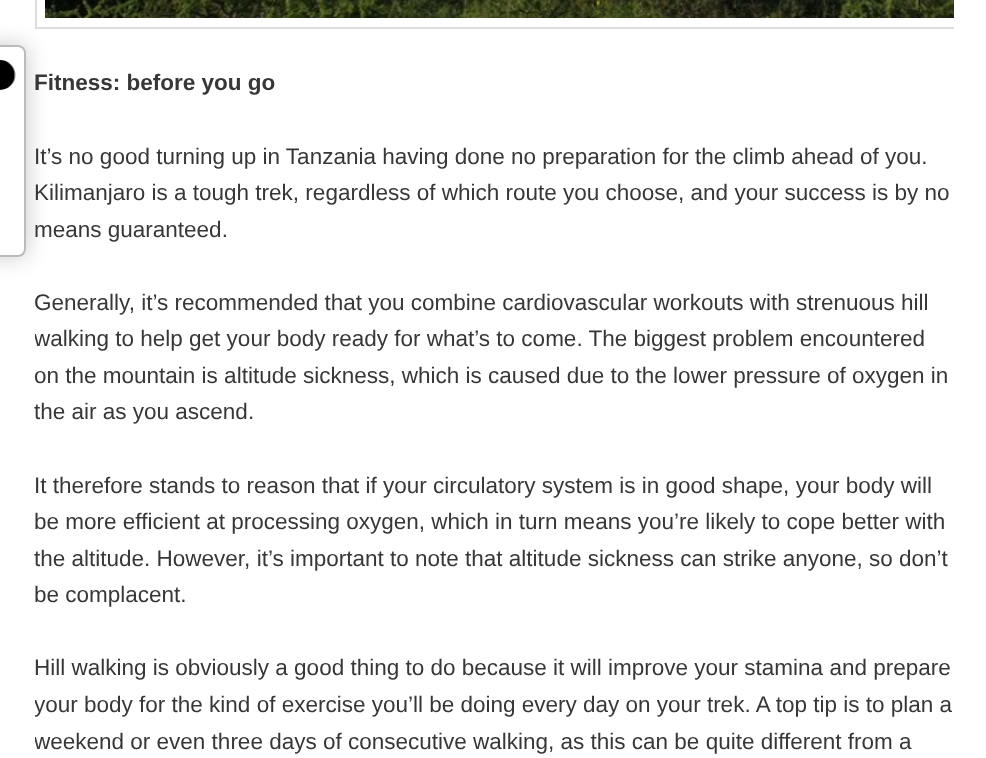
<?xml version="1.0" encoding="UTF-8"?>
<svg xmlns="http://www.w3.org/2000/svg" width="986" height="758">
    <defs>
        <clipPath id="clip1"><rect x="35" y="0" width="919" height="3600"/></clipPath>
        <clipPath id="clip2"><path d="M 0 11 H 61 V 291 H 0 Z M -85 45 H 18 C 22.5 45 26 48.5 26 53 V 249 C 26 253.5 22.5 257 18 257 H -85 C -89.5 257 -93 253.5 -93 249 V 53 C -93 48.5 -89.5 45 -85 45 Z" clip-rule="evenodd"/></clipPath>
        <filter id="blur1" x="-50%" y="-200%" width="200%" height="500%"><feGaussianBlur stdDeviation="11"/></filter>
    </defs>
    <rect width="100%" height="100%" fill="#FFFFFF"/>
    <g clip-path="url(#clip1)">
        <rect x="36" y="-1" width="938" height="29" fill="none" stroke="#DDDDDD" stroke-width="2"/>
    </g>
    <image x="45" y="0" width="909" height="18" href="img_02.png"/>
    <g clip-path="url(#clip2)">
        <rect x="-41" y="45" width="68" height="212" rx="8" fill="#000000" fill-opacity="0.2" filter="url(#blur1)"/>
    </g>
    <rect x="-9" y="46" width="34" height="210" rx="7" fill="none" stroke="#BBBBBB" stroke-width="2"/>
    <image x="0" y="60" width="16" height="30" href="img_01.png"/>
    <text x="34" y="90" font-family="Liberation Sans" font-size="22.5" font-weight="700" fill="#373737">Fitness: before you go</text>
    <text font-family="Liberation Sans" font-size="22.5" fill="#373737">
        <tspan x="34" y="164">It’s no good turning up in Tanzania having done no preparation for the climb ahead of you.</tspan>
        <tspan x="34" y="200">Kilimanjaro is a tough trek, regardless of which route you choose, and your success is by no</tspan>
        <tspan x="34" y="237">means guaranteed.</tspan>
    </text>
    <text x="34" y="310" font-family="Liberation Sans" font-size="22.5" fill="#373737">Generally, it’s recommended that you combine cardiovascular workouts with strenuous hill</text>
    <g clip-path="url(#clip1)">
        <text font-family="Liberation Sans" font-size="22.5" fill="#373737">
            <tspan x="34" y="346">walking to help get your body ready for what’s to come. The biggest problem encountered</tspan>
            <tspan x="34" y="383">on the mountain is altitude sickness, which is caused due to the lower pressure of oxygen in</tspan>
        </text>
    </g>
    <text x="34" y="419" font-family="Liberation Sans" font-size="22.5" fill="#373737">the air as you ascend.</text>
    <text font-family="Liberation Sans" font-size="22.5" fill="#373737">
        <tspan x="34" y="493">It therefore stands to reason that if your circulatory system is in good shape, your body will</tspan>
        <tspan x="34" y="529">be more efficient at processing oxygen, which in turn means you’re likely to cope better with</tspan>
        <tspan x="34" y="566">the altitude. However, it’s important to note that altitude sickness can strike anyone, so don’t</tspan>
        <tspan x="34" y="602">be complacent.</tspan>
    </text>
    <text x="34" y="675" font-family="Liberation Sans" font-size="22.5" fill="#373737">Hill walking is obviously a good thing to do because it will improve your stamina and prepare</text>
    <g clip-path="url(#clip1)">
        <text font-family="Liberation Sans" font-size="22.5" fill="#373737">
            <tspan x="34" y="712">your body for the kind of exercise you’ll be doing every day on your trek. A top tip is to plan a</tspan>
            <tspan x="34" y="749">weekend or even three days of consecutive walking, as this can be quite different from a</tspan>
        </text>
    </g>
</svg>
